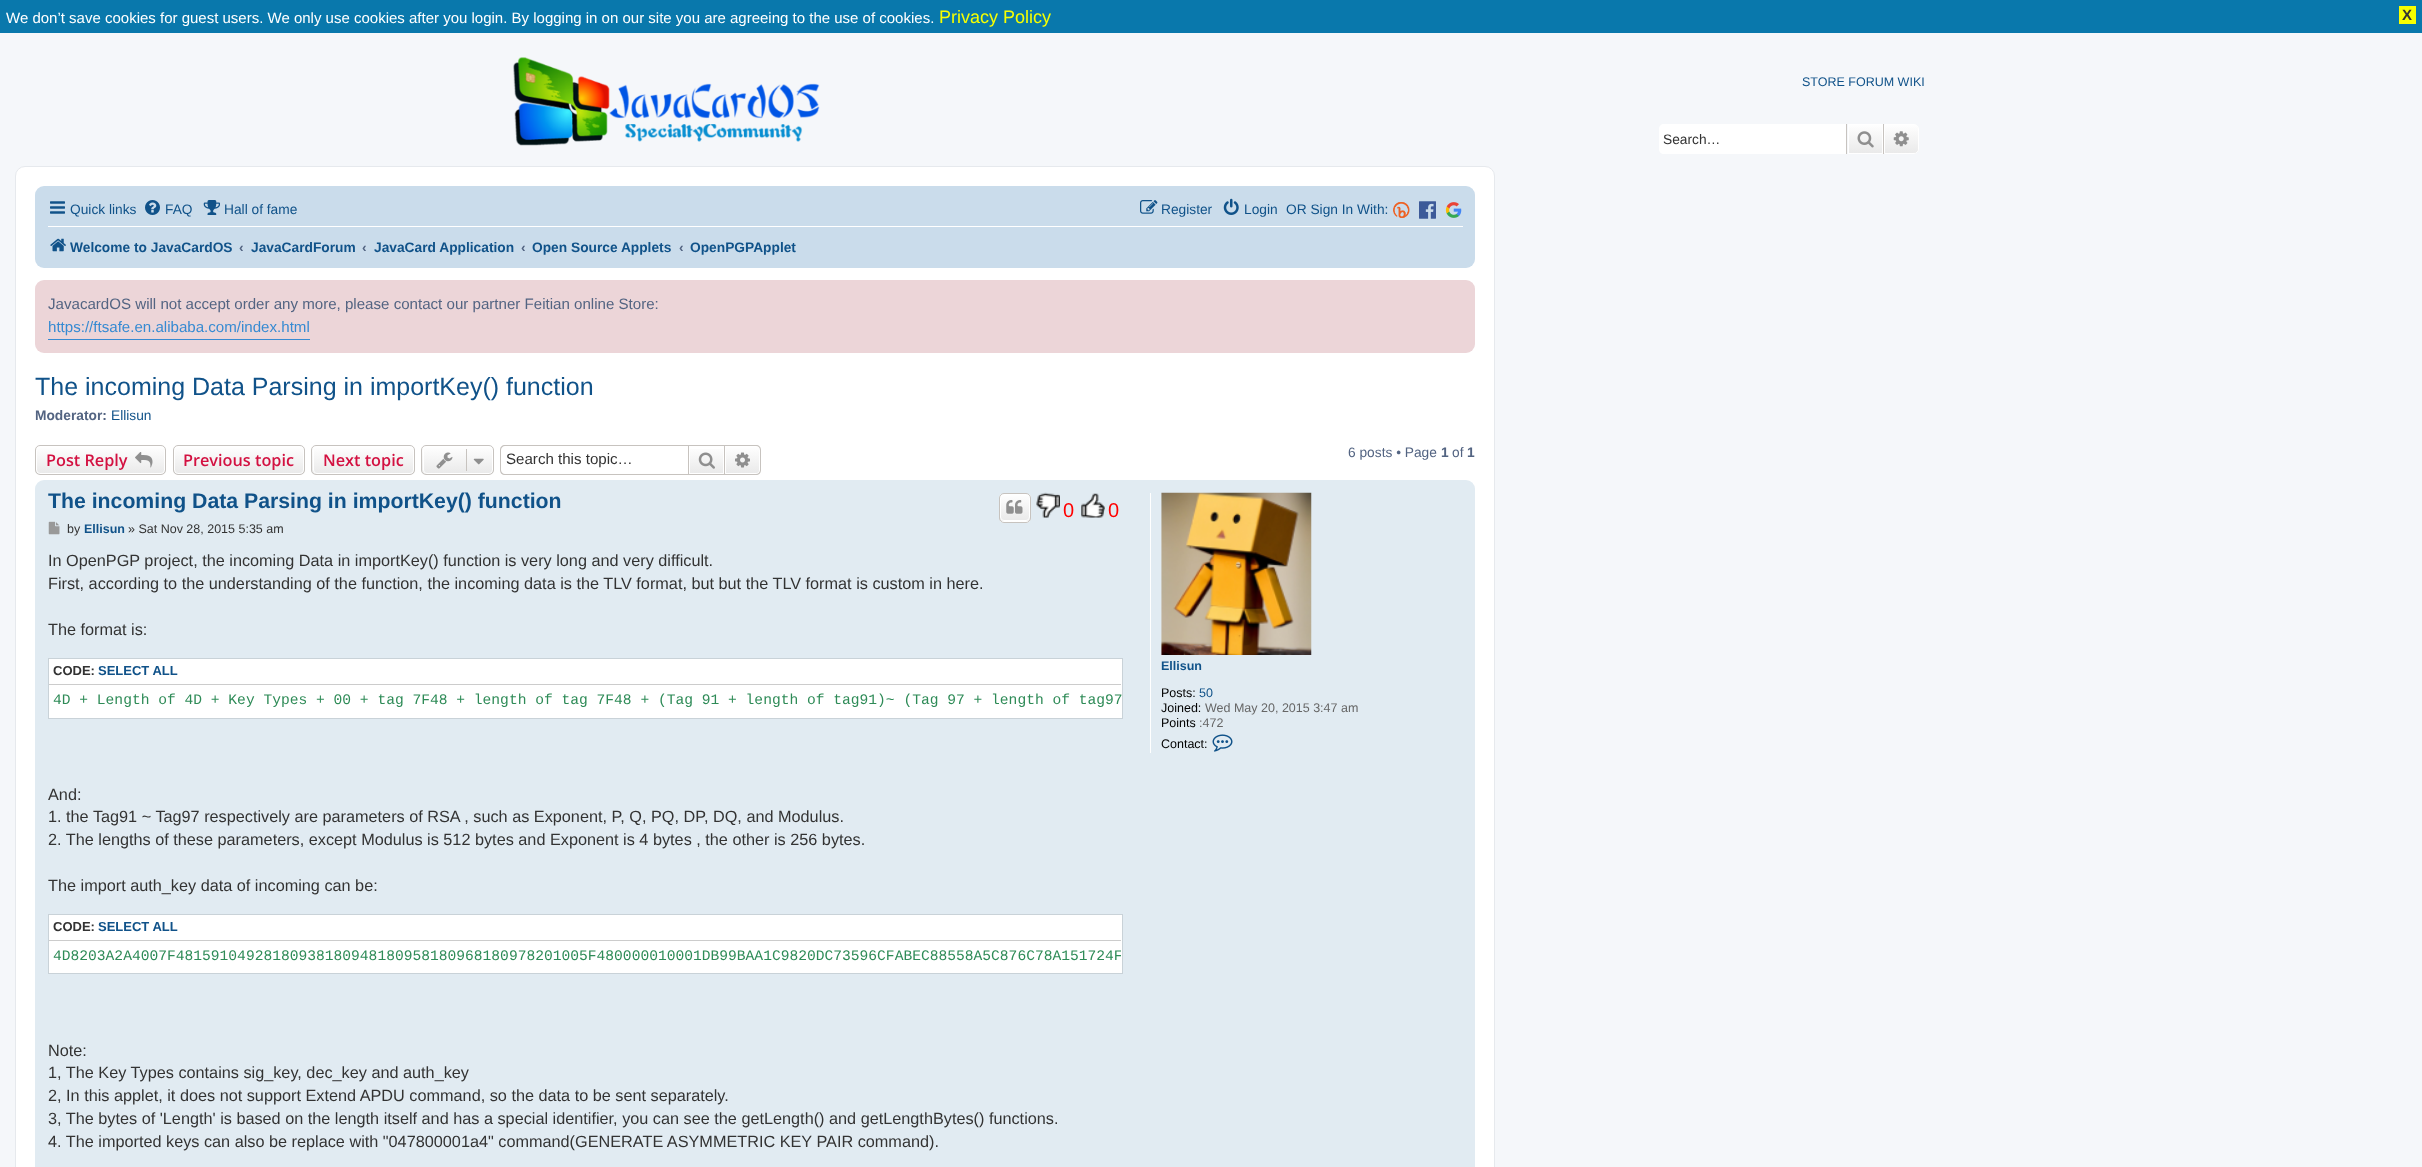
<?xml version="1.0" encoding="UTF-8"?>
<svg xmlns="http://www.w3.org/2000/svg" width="2422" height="1167">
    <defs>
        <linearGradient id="g1" gradientUnits="userSpaceOnUse" x1="1865" y1="124" x2="1865" y2="154"><stop offset="0" stop-color="#FFFFFF"/><stop offset="1" stop-color="#E9E9E9"/></linearGradient>
        <linearGradient id="g2" gradientUnits="userSpaceOnUse" x1="1901" y1="124" x2="1901" y2="154"><stop offset="0" stop-color="#FFFFFF"/><stop offset="1" stop-color="#E9E9E9"/></linearGradient>
        <clipPath id="clip1"><rect x="35" y="445" width="131" height="30" rx="5"/></clipPath>
        <linearGradient id="g3" gradientUnits="userSpaceOnUse" x1="101" y1="446" x2="101" y2="474"><stop offset="0" stop-color="#FFFFFF"/><stop offset="1" stop-color="#E9E9E9"/></linearGradient>
        <clipPath id="clip2"><rect x="173" y="445" width="132" height="30" rx="5"/></clipPath>
        <linearGradient id="g4" gradientUnits="userSpaceOnUse" x1="239" y1="446" x2="239" y2="474"><stop offset="0" stop-color="#FFFFFF"/><stop offset="1" stop-color="#E9E9E9"/></linearGradient>
        <clipPath id="clip3"><rect x="311" y="445" width="104" height="30" rx="5"/></clipPath>
        <linearGradient id="g5" gradientUnits="userSpaceOnUse" x1="363" y1="446" x2="363" y2="474"><stop offset="0" stop-color="#FFFFFF"/><stop offset="1" stop-color="#E9E9E9"/></linearGradient>
        <clipPath id="clip4"><rect x="421" y="445" width="73" height="30" rx="5"/></clipPath>
        <linearGradient id="g6" gradientUnits="userSpaceOnUse" x1="458" y1="446" x2="458" y2="474"><stop offset="0" stop-color="#FFFFFF"/><stop offset="1" stop-color="#E9E9E9"/></linearGradient>
        <linearGradient id="g7" gradientUnits="userSpaceOnUse" x1="706" y1="446" x2="706" y2="474"><stop offset="0" stop-color="#FFFFFF"/><stop offset="1" stop-color="#E9E9E9"/></linearGradient>
        <linearGradient id="g8" gradientUnits="userSpaceOnUse" x1="743" y1="446" x2="743" y2="474"><stop offset="0" stop-color="#FFFFFF"/><stop offset="1" stop-color="#E9E9E9"/></linearGradient>
        <clipPath id="clip5"><rect x="999" y="493" width="32" height="30" rx="5"/></clipPath>
        <linearGradient id="g9" gradientUnits="userSpaceOnUse" x1="1015" y1="494" x2="1015" y2="521"><stop offset="0" stop-color="#FFFFFF"/><stop offset="1" stop-color="#E9E9E9"/></linearGradient>
        <linearGradient id="g10" gradientUnits="userSpaceOnUse" x1="1015" y1="521" x2="1015" y2="549"><stop offset="0" stop-color="#FFFFFF"/><stop offset="1" stop-color="#E9E9E9"/></linearGradient>
        <clipPath id="clip6"><rect x="49" y="941" width="1072" height="32"/></clipPath>
    </defs>
    <rect width="100%" height="100%" fill="#F5F7FA"/>
    <rect x="0" y="0" width="2422" height="33" fill="#0978AC"/>
    <text x="6" y="23" font-family="Liberation Sans" font-size="15" fill="#FFFFFF">We don’t save cookies for guest users. We only use cookies after you login. By logging in on our site you are agreeing to the use of cookies.</text>
    <text x="939" y="23" font-family="Liberation Sans" font-size="18" fill="#F7FF00">Privacy Policy</text>
    <rect x="2399" y="6" width="17" height="18" fill="#F7FF00"/>
    <text x="2402" y="20" font-family="Liberation Sans" font-size="15" font-weight="700" fill="#333333">X</text>
    <image x="513" y="57" width="307" height="89" href="img_01.png"/>
    <text x="1802" y="86" font-family="Liberation Sans" font-size="12.5" fill="#105289">STORE FORUM WIKI</text>
    <path d="M 1664 124 H 1846 V 154 H 1664 C 1661 154 1659 152 1659 149 V 129 C 1659 126 1661 124 1664 124 Z" fill="#FFFFFF"/>
    <text x="1663" y="144" font-family="Liberation Sans" font-size="13.75" fill="#333333">Search…</text>
    <rect x="1849" y="125" width="33" height="28" fill="url(#g1)"/>
    <rect x="1848.5" y="124.5" width="34" height="29" fill="none" stroke="#FFFFFF"/>
    <rect x="1883" y="124" width="1" height="30" fill="#C7C3BF"/>
    <rect x="1846" y="124" width="1" height="30" fill="#C7C3BF"/>
    <image x="1857" y="131" width="17" height="17" href="img_02.png"/>
    <path d="M 1884.5 124.5 H 1914 C 1916.5 124.5 1918.5 126.5 1918.5 129 V 149 C 1918.5 151.5 1916.5 153.5 1914 153.5 H 1884.5 Z" fill="url(#g2)" stroke="#FFFFFF"/>
    <image x="1893" y="131" width="16" height="16" href="img_03.png"/>
    <rect x="15.5" y="166.5" width="1479" height="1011" rx="9.5" fill="#FFFFFF" stroke="#E6E9ED"/>
    <rect x="35" y="186" width="1440" height="82" rx="9" fill="#CADCEB"/>
    <image x="50" y="201" width="15" height="13" href="img_04.png"/>
    <text x="70" y="214" font-family="Liberation Sans" font-size="13.75" fill="#105289">Quick links</text>
    <image x="145" y="200" width="15" height="15" href="img_05.png"/>
    <text x="165" y="214" font-family="Liberation Sans" font-size="13.75" fill="#105289">FAQ</text>
    <image x="203" y="200" width="17" height="15" href="img_06.png"/>
    <text x="224" y="214" font-family="Liberation Sans" font-size="13.75" fill="#105289">Hall of fame</text>
    <image x="1140" y="200" width="18" height="14" href="img_07.png"/>
    <text x="1161" y="214" font-family="Liberation Sans" font-size="13.75" fill="#105289">Register</text>
    <image x="1223" y="198" width="16" height="17" href="img_08.png"/>
    <text x="1244" y="214" font-family="Liberation Sans" font-size="13.75" fill="#105289">Login</text>
    <text x="1286" y="214" font-family="Liberation Sans" font-size="13.75" fill="#105289">OR Sign In With:</text>
    <image x="1393" y="202" width="17" height="16" href="img_09.png"/>
    <image x="1419" y="201" width="17" height="18" href="img_10.png"/>
    <image x="1445" y="202" width="17" height="16" href="img_11.png"/>
    <rect x="48" y="226" width="1415" height="1" fill="#FFFFFF"/>
    <image x="50" y="238" width="16" height="14" href="img_12.png"/>
    <text x="70" y="252" font-family="Liberation Sans" font-size="13.75" font-weight="700" fill="#105289">Welcome to JavaCardOS</text>
    <text x="239" y="252" font-family="Liberation Sans" font-size="13.75" font-weight="700" fill="#536482">‹</text>
    <text x="251" y="252" font-family="Liberation Sans" font-size="13.75" font-weight="700" fill="#105289">JavaCardForum</text>
    <text x="362" y="252" font-family="Liberation Sans" font-size="13.75" font-weight="700" fill="#536482">‹</text>
    <text x="374" y="252" font-family="Liberation Sans" font-size="13.75" font-weight="700" fill="#105289">JavaCard Application</text>
    <text x="521" y="252" font-family="Liberation Sans" font-size="13.75" font-weight="700" fill="#536482">‹</text>
    <text x="532" y="252" font-family="Liberation Sans" font-size="13.75" font-weight="700" fill="#105289">Open Source Applets</text>
    <text x="679" y="252" font-family="Liberation Sans" font-size="13.75" font-weight="700" fill="#536482">‹</text>
    <text x="690" y="252" font-family="Liberation Sans" font-size="13.75" font-weight="700" fill="#105289">OpenPGPApplet</text>
    <rect x="35" y="280" width="1440" height="73" rx="9" fill="#ECD5D8"/>
    <text x="48" y="309" font-family="Liberation Sans" font-size="15.1" fill="#536482">JavacardOS will not accept order any more, please contact our partner Feitian online Store:</text>
    <rect x="48" y="339" width="262" height="1" fill="#368AD2"/>
    <text x="48" y="332" font-family="Liberation Sans" font-size="15.1" fill="#368AD2">https://ftsafe.en.alibaba.com/index.html</text>
    <text x="35" y="395" font-family="Liberation Sans" font-size="25" fill="#105289">The incoming Data Parsing in importKey() function</text>
    <text x="35" y="420" font-family="Liberation Sans" font-size="13.75" font-weight="700" fill="#536482">Moderator:</text>
    <text x="111" y="420" font-family="Liberation Sans" font-size="13.75" fill="#105289">Ellisun</text>
    <g clip-path="url(#clip1)">
        <rect x="35" y="446" width="131" height="28" fill="url(#g3)"/>
    </g>
    <rect x="36.5" y="446.5" width="128" height="27" rx="3.5" fill="none" stroke="#FFFFFF"/>
    <rect x="35.5" y="445.5" width="130" height="29" rx="4.5" fill="none" stroke="#C7C3BF"/>
    <text x="46" y="466" font-family="Open Sans" font-size="16.25" font-weight="600" fill="#D31141">Post Reply</text>
    <image x="135" y="452" width="18" height="16" href="img_13.png"/>
    <g clip-path="url(#clip2)">
        <rect x="173" y="446" width="132" height="28" fill="url(#g4)"/>
    </g>
    <rect x="174.5" y="446.5" width="129" height="27" rx="3.5" fill="none" stroke="#FFFFFF"/>
    <rect x="173.5" y="445.5" width="131" height="29" rx="4.5" fill="none" stroke="#C7C3BF"/>
    <text x="183" y="466" font-family="Open Sans" font-size="16.25" font-weight="600" fill="#D31141">Previous topic</text>
    <g clip-path="url(#clip3)">
        <rect x="311" y="446" width="104" height="28" fill="url(#g5)"/>
    </g>
    <rect x="313.5" y="446.5" width="100" height="27" rx="3.5" fill="none" stroke="#FFFFFF"/>
    <rect x="311.5" y="445.5" width="103" height="29" rx="4.5" fill="none" stroke="#C7C3BF"/>
    <text x="323" y="466" font-family="Open Sans" font-size="16.25" font-weight="600" fill="#D31141">Next topic</text>
    <g clip-path="url(#clip4)">
        <rect x="421" y="446" width="73" height="28" fill="url(#g6)"/>
    </g>
    <rect x="423.5" y="446.5" width="69" height="27" rx="3.5" fill="none" stroke="#FFFFFF"/>
    <rect x="421.5" y="445.5" width="72" height="29" rx="4.5" fill="none" stroke="#C7C3BF"/>
    <image x="436" y="452" width="17" height="17" href="img_14.png"/>
    <rect x="466" y="449" width="1" height="22" fill="#C7C3BF"/>
    <image x="473" y="458" width="11" height="7" href="img_15.png"/>
    <path d="M 505 445 H 688 V 475 H 505 C 502 475 500 473 500 470 V 450 C 500 447 502 445 505 445 Z M 505 446 H 688 V 474 H 505 C 503 474 501 472 501 470 V 450 C 501 448 503 446 505 446 Z" fill="#C7C3BF" fill-rule="evenodd"/>
    <text x="506" y="464" font-family="Liberation Sans" font-size="15.1" fill="#333333">Search this topic…</text>
    <rect x="690" y="449" width="33" height="24" fill="url(#g7)"/>
    <rect x="688.5" y="445.5" width="36" height="29" fill="none" stroke="#C7C3BF"/>
    <image x="698" y="452" width="17" height="17" href="img_16.png"/>
    <path d="M 725.5 446.5 H 756 C 758 446.5 759.5 448 759.5 450 V 470 C 759.5 472 758 473.5 756 473.5 H 725.5 Z" fill="url(#g8)" stroke="#FFFFFF"/>
    <path d="M 725 445 H 756 C 759 445 761 447 761 450 V 470 C 761 473 759 475 756 475 H 725 Z M 725 446 H 756 C 758.5 446 760 448 760 450 V 470 C 760 472 758.5 474 756 474 H 725 Z" fill="#C7C3BF" fill-rule="evenodd"/>
    <image x="735" y="452" width="15" height="16" href="img_17.png"/>
    <text x="1348" y="457" font-family="Liberation Sans" font-size="13.75" fill="#536482">6 posts • Page</text>
    <text x="1441" y="457" font-family="Liberation Sans" font-size="13.75" font-weight="700" fill="#536482">1</text>
    <text x="1452" y="457" font-family="Liberation Sans" font-size="13.75" fill="#536482">of</text>
    <text x="1467" y="457" font-family="Liberation Sans" font-size="13.75" font-weight="700" fill="#536482">1</text>
    <rect x="35" y="480" width="1440" height="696" rx="9" fill="#E1EBF2"/>
    <text x="48" y="508" font-family="Liberation Sans" font-size="21.25" font-weight="700" fill="#105289">The incoming Data Parsing in importKey() function</text>
    <g clip-path="url(#clip5)">
        <rect x="999" y="494" width="32" height="27" fill="url(#g9)"/>
        <rect x="999" y="521" width="32" height="2" fill="url(#g10)"/>
    </g>
    <rect x="1000.5" y="494.5" width="29" height="26" rx="3.5" fill="none" stroke="#FFFFFF"/>
    <rect x="999.5" y="493.5" width="31" height="29" rx="4.5" fill="none" stroke="#C7C3BF"/>
    <image x="1006" y="500" width="17" height="14" href="img_18.png"/>
    <image x="1036" y="492" width="24" height="26" href="img_19.png"/>
    <text x="1063" y="517" font-family="Liberation Sans" font-size="20" fill="#FF0000">0</text>
    <image x="1081" y="493" width="24" height="25" href="img_20.png"/>
    <text x="1108" y="517" font-family="Liberation Sans" font-size="20" fill="#FF0000">0</text>
    <image x="48" y="521" width="12" height="14" href="img_21.png"/>
    <text x="67" y="533" font-family="Liberation Sans" font-size="12.5" fill="#333333">by</text>
    <text x="84" y="533" font-family="Liberation Sans" font-size="12.5" font-weight="700" fill="#105289">Ellisun</text>
    <text x="128" y="533" font-family="Liberation Sans" font-size="12.5" fill="#333333">» Sat Nov 28, 2015 5:35 am</text>
    <text font-family="Liberation Sans" font-size="16.25" fill="#333333">
        <tspan x="48" y="566">In OpenPGP project, the incoming Data in importKey() function is very long and very difficult.</tspan>
        <tspan x="48" y="589">First, according to the understanding of the function, the incoming data is the TLV format, but but the TLV format is custom in here.</tspan>
    </text>
    <text x="48" y="635" font-family="Liberation Sans" font-size="16.25" fill="#333333">The format is:</text>
    <rect x="48.5" y="658.5" width="1074" height="60" fill="#FFFFFF" stroke="#C9D2D8"/>
    <rect x="49" y="684" width="1072" height="1" fill="#CCCCCC"/>
    <text x="53" y="675" font-family="Liberation Sans" font-size="13" font-weight="700" fill="#333333">CODE:</text>
    <text x="98" y="675" font-family="Liberation Sans" font-size="13" font-weight="700" fill="#105289">SELECT ALL</text>
    <text x="53" y="704" font-family="Liberation Mono" font-size="14.62" fill="#2E8B57">4D + Length of 4D + Key Types + 00 + tag 7F48 + length of tag 7F48 + (Tag 91 + length of tag91)~ (Tag 97 + length of tag97</text>
    <text font-family="Liberation Sans" font-size="16.25" fill="#333333">
        <tspan x="48" y="800">And:</tspan>
        <tspan x="48" y="822">1. the Tag91 ~ Tag97 respectively are parameters of RSA , such as Exponent, P, Q, PQ, DP, DQ, and Modulus.</tspan>
        <tspan x="48" y="845">2. The lengths of these parameters, except Modulus is 512 bytes and Exponent is 4 bytes , the other is 256 bytes.</tspan>
    </text>
    <text x="48" y="891" font-family="Liberation Sans" font-size="16.25" fill="#333333">The import auth_key data of incoming can be:</text>
    <rect x="48.5" y="914.5" width="1074" height="59" fill="#FFFFFF" stroke="#C9D2D8"/>
    <rect x="49" y="940" width="1072" height="1" fill="#CCCCCC"/>
    <text x="53" y="931" font-family="Liberation Sans" font-size="13" font-weight="700" fill="#333333">CODE:</text>
    <text x="98" y="931" font-family="Liberation Sans" font-size="13" font-weight="700" fill="#105289">SELECT ALL</text>
    <g clip-path="url(#clip6)">
        <text x="53" y="960" font-family="Liberation Mono" font-size="14.62" fill="#2E8B57">4D8203A2A4007F48159104928180938180948180958180968180978201005F480000010001DB99BAA1C9820DC73596CFABEC88558A5C876C78A151724F</text>
    </g>
    <text font-family="Liberation Sans" font-size="16.25" fill="#333333">
        <tspan x="48" y="1056">Note:</tspan>
        <tspan x="48" y="1078">1, The Key Types contains sig_key, dec_key and auth_key</tspan>
        <tspan x="48" y="1101">2, In this applet, it does not support Extend APDU command, so the data to be sent separately.</tspan>
        <tspan x="48" y="1124">3, The bytes of 'Length' is based on the length itself and has a special identifier, you can see the getLength() and getLengthBytes() functions.</tspan>
        <tspan x="48" y="1147">4. The imported keys can also be replace with "047800001a4" command(GENERATE ASYMMETRIC KEY PAIR command).</tspan>
    </text>
    <rect x="1150" y="493" width="1" height="260" fill="#FFFFFF"/>
    <image x="1161" y="492" width="151" height="163" href="img_22.png"/>
    <text x="1161" y="670" font-family="Liberation Sans" font-size="12.5" font-weight="700" fill="#105289">Ellisun</text>
    <text x="1161" y="697" font-family="Liberation Sans" font-size="12.5" fill="#000000">Posts:</text>
    <text x="1199" y="697" font-family="Liberation Sans" font-size="12.5" fill="#105289">50</text>
    <text x="1161" y="712" font-family="Liberation Sans" font-size="12.5" fill="#000000">Joined:</text>
    <text x="1205" y="712" font-family="Liberation Sans" font-size="12.5" fill="#666666">Wed May 20, 2015 3:47 am</text>
    <text x="1161" y="727" font-family="Liberation Sans" font-size="12.5" fill="#000000">Points</text>
    <text x="1199" y="727" font-family="Liberation Sans" font-size="12.5" fill="#666666">:472</text>
    <text x="1161" y="748" font-family="Liberation Sans" font-size="12.5" fill="#000000">Contact:</text>
    <image x="1212" y="734" width="21" height="18" href="img_23.png"/>
</svg>
